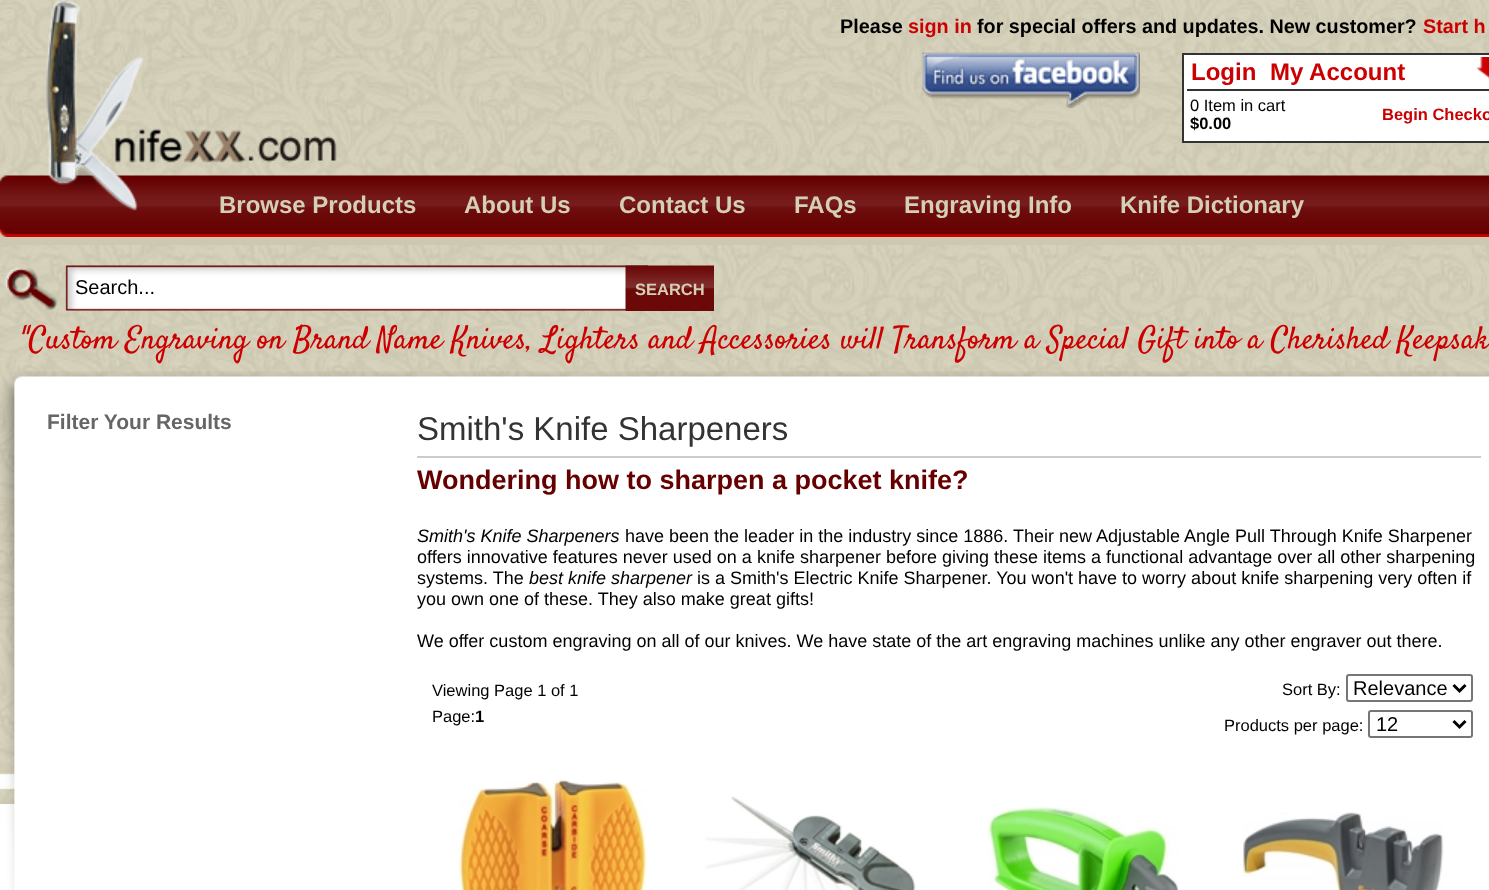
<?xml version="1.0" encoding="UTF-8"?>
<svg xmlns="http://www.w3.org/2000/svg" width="1489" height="890">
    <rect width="100%" height="100%" fill="#FFFFFF"/>
    <image x="0" y="0" width="1489" height="804" href="img_01.png"/>
    <image x="0" y="175" width="1489" height="62" href="img_05.png"/>
    <image x="45" y="0" width="292" height="211" href="img_02.png"/>
    <text x="840" y="33" font-family="Liberation Sans" font-size="19.8" font-weight="700" fill="#000000">Please</text>
    <text x="908" y="33" font-family="Liberation Sans" font-size="19.8" font-weight="700" fill="#CC0000">sign in</text>
    <text x="977" y="33" font-family="Liberation Sans" font-size="19.8" font-weight="700" fill="#000000">for special offers and updates. New customer?</text>
    <text x="1423" y="33" font-family="Liberation Sans" font-size="19.8" font-weight="700" fill="#CC0000">Start h</text>
    <image x="922" y="52" width="218" height="56" href="img_03.png"/>
    <rect x="1183" y="54" width="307" height="88" fill="#FFFFFF" stroke="#333333" stroke-width="2"/>
    <rect x="1187" y="89" width="302" height="2" fill="#333333"/>
    <text x="1191" y="80" font-family="Liberation Sans" font-size="24" font-weight="700" fill="#CC0000">Login</text>
    <text x="1270" y="80" font-family="Liberation Sans" font-size="24" font-weight="700" fill="#CC0000">My Account</text>
    <image x="1476" y="57" width="13" height="22" href="img_04.png"/>
    <text x="1190" y="111" font-family="Liberation Sans" font-size="16.5" fill="#000000">0 Item in cart</text>
    <text x="1190" y="129" font-family="Liberation Sans" font-size="16.5" font-weight="700" fill="#000000">$0.00</text>
    <text x="1382" y="120" font-family="Liberation Sans" font-size="16.5" font-weight="700" fill="#CC0000">Begin Checko</text>
    <rect x="0" y="237" width="1489" height="8" fill="#CDC8B1"/>
    <text x="219" y="213" font-family="Liberation Sans" font-size="24" font-weight="700" fill="#D4CFB7">Browse Products</text>
    <text x="464" y="213" font-family="Liberation Sans" font-size="24" font-weight="700" fill="#D4CFB7">About Us</text>
    <text x="619" y="213" font-family="Liberation Sans" font-size="24" font-weight="700" fill="#D4CFB7">Contact Us</text>
    <text x="794" y="213" font-family="Liberation Sans" font-size="24" font-weight="700" fill="#D4CFB7">FAQs</text>
    <text x="904" y="213" font-family="Liberation Sans" font-size="24" font-weight="700" fill="#D4CFB7">Engraving Info</text>
    <text x="1120" y="213" font-family="Liberation Sans" font-size="24" font-weight="700" fill="#D4CFB7">Knife Dictionary</text>
    <image x="4" y="265" width="644" height="46" href="img_06.png"/>
    <text x="75" y="294" font-family="Liberation Sans" font-size="20" fill="#000000">Search...</text>
    <rect x="626" y="310" width="88" height="1" fill="#6B0808"/>
    <image x="625" y="265" width="89" height="46" href="img_07.png"/>
    <text x="635" y="295" font-family="Liberation Sans" font-size="16.5" font-weight="700" fill="#D4CFB7">SEARCH</text>
    <text x="21" y="348" font-family="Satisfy" font-size="31.5" fill="#CC0000">"Custom Engraving on Brand Name Knives, Lighters and Accessories will Transform a Special Gift into a Cherished Keepsak</text>
    <image x="0" y="371" width="1489" height="519" href="img_08.png"/>
    <text x="47" y="429" font-family="Liberation Sans" font-size="21" font-weight="700" fill="#666666">Filter Your Results</text>
    <rect x="417" y="456" width="1064" height="2" fill="#CCCCCC"/>
    <text x="417" y="440" font-family="Liberation Sans" font-size="33" fill="#333333">Smith's Knife Sharpeners</text>
    <text x="417" y="489" font-family="Liberation Sans" font-size="27" font-weight="700" fill="#660000">Wondering how to sharpen a pocket knife?</text>
    <text x="417" y="542" font-family="Liberation Sans" font-size="18" font-style="italic" fill="#000000">Smith's Knife Sharpeners</text>
    <text x="625" y="542" font-family="Liberation Sans" font-size="18" fill="#000000">have been the leader in the industry since 1886. Their new Adjustable Angle Pull Through Knife Sharpener</text>
    <text font-family="Liberation Sans" font-size="18" fill="#000000">
        <tspan x="417" y="563">offers innovative features never used on a knife sharpener before giving these items a functional advantage over all other sharpening</tspan>
        <tspan x="417" y="584">systems. The</tspan>
    </text>
    <text x="529" y="584" font-family="Liberation Sans" font-size="18" font-style="italic" fill="#000000">best knife sharpener</text>
    <text x="697" y="584" font-family="Liberation Sans" font-size="18" fill="#000000">is a Smith's Electric Knife Sharpener. You won't have to worry about knife sharpening very often if</text>
    <text x="417" y="605" font-family="Liberation Sans" font-size="18" fill="#000000">you own one of these. They also make great gifts!</text>
    <text x="417" y="647" font-family="Liberation Sans" font-size="18" fill="#000000">We offer custom engraving on all of our knives. We have state of the art engraving machines unlike any other engraver out there.</text>
    <text font-family="Liberation Sans" font-size="16.5" fill="#000000">
        <tspan x="432" y="696">Viewing Page 1 of 1</tspan>
        <tspan x="432" y="722">Page:</tspan>
    </text>
    <text x="475" y="722" font-family="Liberation Sans" font-size="16.5" font-weight="700" fill="#000000">1</text>
    <text x="1282" y="695" font-family="Liberation Sans" font-size="16.5" fill="#000000">Sort By:</text>
    <rect x="1347" y="675" width="125" height="26" rx="2" fill="none" stroke="#767676" stroke-width="2"/>
    <path d="M 1453.5 685 L 1459.5 691 L 1465.5 685" fill="none" stroke="#000000" stroke-width="3"/>
    <text x="1353" y="695" font-family="Liberation Sans" font-size="20" fill="#000000">Relevance</text>
    <text x="1224" y="731" font-family="Liberation Sans" font-size="16.5" fill="#000000">Products per page:</text>
    <rect x="1369" y="711" width="103" height="26" rx="2" fill="none" stroke="#767676" stroke-width="2"/>
    <path d="M 1453.5 721 L 1459.5 727 L 1465.5 721" fill="none" stroke="#000000" stroke-width="3"/>
    <text x="1376" y="731" font-family="Liberation Sans" font-size="20" fill="#000000">12</text>
    <image x="458" y="779" width="190" height="111" href="img_09.png"/>
    <image x="705" y="796" width="211" height="94" href="img_10.png"/>
    <image x="988" y="806" width="191" height="84" href="img_11.png"/>
    <image x="1242" y="812" width="202" height="78" href="img_12.png"/>
</svg>
